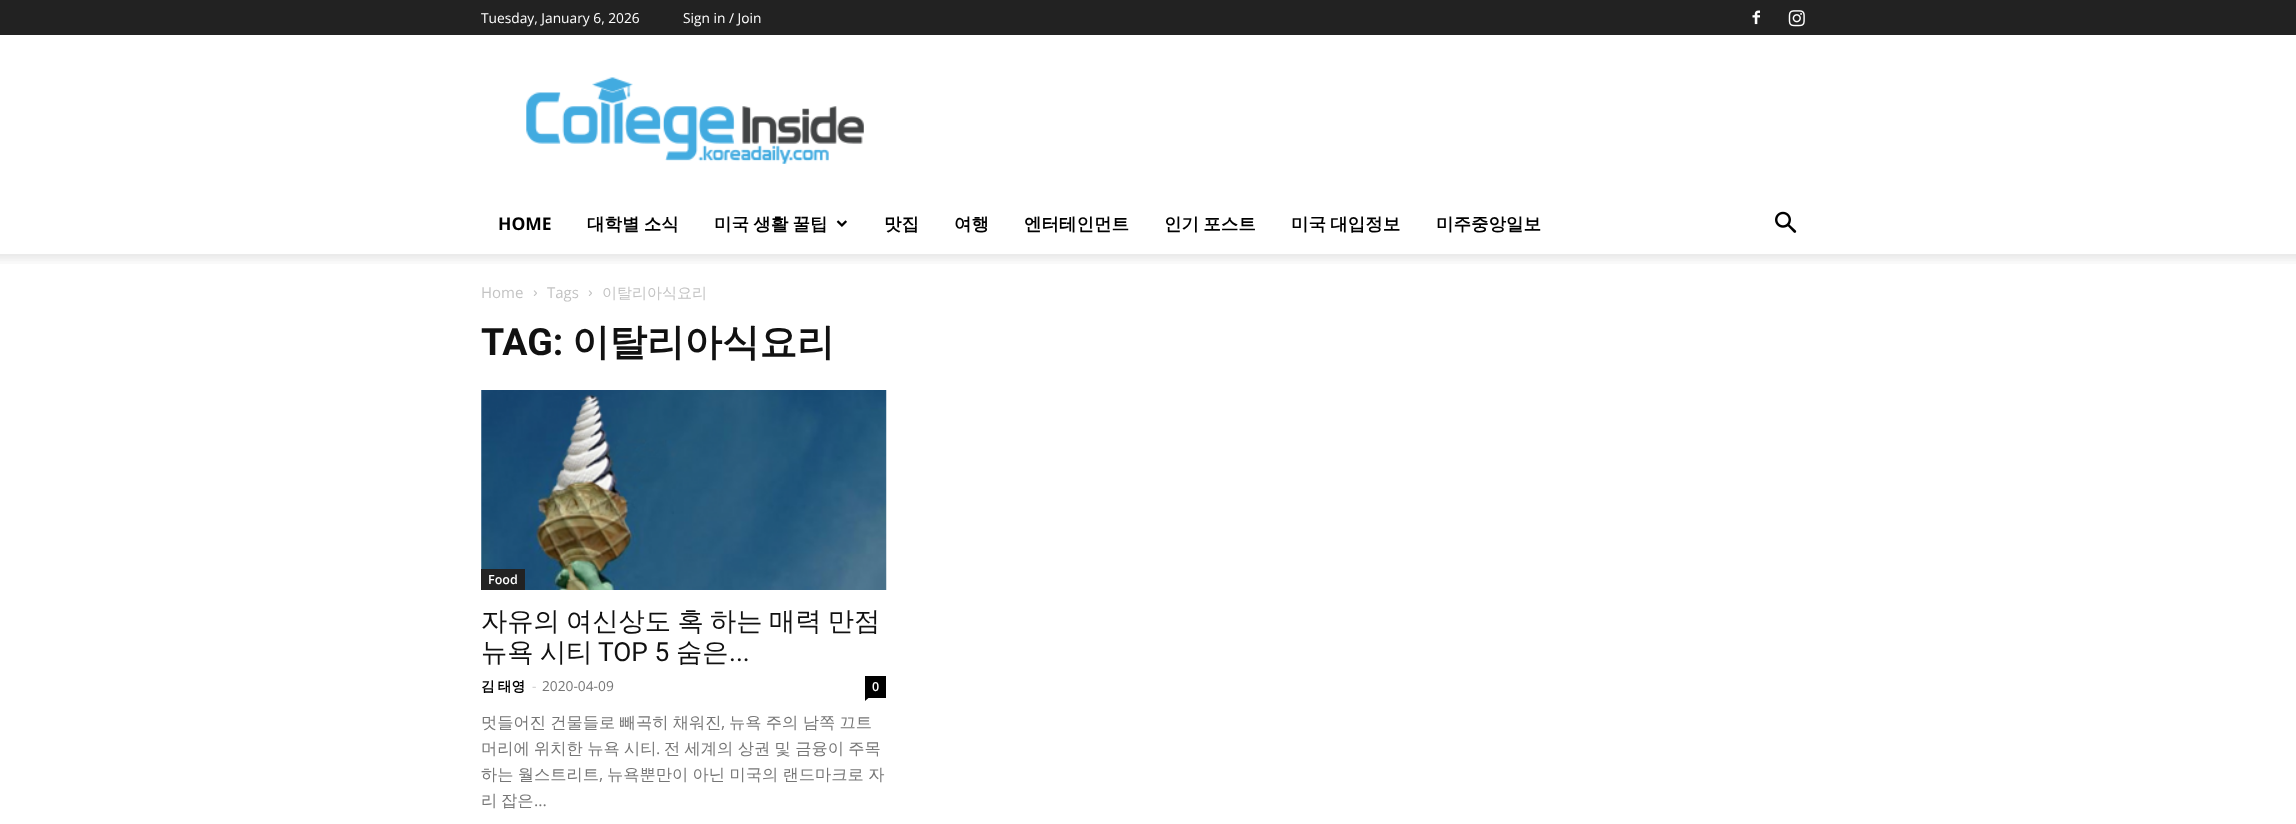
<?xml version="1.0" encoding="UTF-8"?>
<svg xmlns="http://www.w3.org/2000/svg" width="2296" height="824">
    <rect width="100%" height="100%" fill="#FFFFFF"/>
    <rect x="0" y="0" width="2296" height="35" fill="#222222"/>
    <text x="481" y="23" font-family="Open Sans" font-size="13.75" fill="#FFFFFF">Tuesday, January 6, 2026</text>
    <text x="683" y="23" font-family="Open Sans" font-size="13.75" fill="#FFFFFF">Sign in / Join</text>
    <image x="1752" y="10" width="8" height="15" href="img_01.png"/>
    <image x="1788" y="10" width="17" height="17" href="img_02.png"/>
    <image x="526" y="77" width="338" height="87" href="img_03.png"/>
    <text x="498" y="230" font-family="Open Sans" font-size="17.5" font-weight="700" fill="#000000">HOME</text>
    <text x="587" y="230" word-spacing="-1" font-family="WenQuanYi Zen Hei" font-size="17.5" font-weight="700" fill="#000000">대학별 소식</text>
    <text x="714" y="230" word-spacing="-1" font-family="WenQuanYi Zen Hei" font-size="17.5" font-weight="700" fill="#000000">미국 생활 꿀팁</text>
    <image x="836" y="220" width="11" height="7" href="img_04.png"/>
    <text x="884" y="230" font-family="WenQuanYi Zen Hei" font-size="17.5" font-weight="700" fill="#000000">맛집</text>
    <text x="954" y="230" font-family="WenQuanYi Zen Hei" font-size="17.5" font-weight="700" fill="#000000">여행</text>
    <text x="1024" y="230" font-family="WenQuanYi Zen Hei" font-size="17.5" font-weight="700" fill="#000000">엔터테인먼트</text>
    <text x="1164" y="230" word-spacing="-1" font-family="WenQuanYi Zen Hei" font-size="17.5" font-weight="700" fill="#000000">인기 포스트</text>
    <text x="1291" y="230" word-spacing="-1" font-family="WenQuanYi Zen Hei" font-size="17.5" font-weight="700" fill="#000000">미국 대입정보</text>
    <text x="1436" y="230" font-family="WenQuanYi Zen Hei" font-size="17.5" font-weight="700" fill="#000000">미주중앙일보</text>
    <image x="1775" y="211" width="22" height="22" href="img_05.png"/>
    <image x="0" y="254" width="2296" height="10" href="img_06.png"/>
    <text x="481" y="298" font-family="Open Sans" font-size="15" fill="#C3C3C3">Home</text>
    <image x="533" y="290" width="4" height="6" href="img_07.png"/>
    <text x="547" y="298" font-family="Open Sans" font-size="15" fill="#C3C3C3">Tags</text>
    <image x="588" y="290" width="4" height="6" href="img_07.png"/>
    <text x="602" y="298" font-family="WenQuanYi Zen Hei" font-size="15" font-weight="500" fill="#C3C3C3">이탈리아식요리</text>
    <text x="481" y="355" font-family="Roboto" font-size="37.5" font-weight="700" fill="#111111">TAG:</text>
    <text x="572" y="355" font-family="WenQuanYi Zen Hei" font-size="37.5" font-weight="700" fill="#111111">이탈리아식요리</text>
    <image x="481" y="390" width="406" height="200" href="img_08.png"/>
    <rect x="481" y="569" width="44" height="21" fill="#222222"/>
    <text x="488" y="584" font-family="Open Sans" font-size="12.5" font-weight="600" fill="#FFFFFF">Food</text>
    <text font-family="WenQuanYi Zen Hei" font-size="26.25" font-weight="500" fill="#111111">
        <tspan x="481" y="630" word-spacing="-1.5">자유의 여신상도 혹 하는 매력 만점</tspan>
        <tspan x="481" y="661">뉴욕</tspan>
    </text>
    <text x="540" y="661" font-family="WenQuanYi Zen Hei" font-size="26.25" font-weight="500" fill="#111111">시티</text>
    <text x="598" y="661" font-family="Roboto" font-size="26.25" fill="#111111">TOP 5</text>
    <text x="676" y="661" font-family="WenQuanYi Zen Hei" font-size="26.25" font-weight="500" fill="#111111">숨은</text>
    <text x="729" y="661" font-family="Roboto" font-size="26.25" fill="#111111">...</text>
    <text x="481" y="691" word-spacing="-1" font-family="WenQuanYi Zen Hei" font-size="13.75" font-weight="700" fill="#000000">김 태영</text>
    <text x="532" y="691" font-family="Open Sans" font-size="13.75" fill="#CCCCCC">-</text>
    <text x="542" y="691" font-family="Open Sans" font-size="13.75" fill="#767676">2020-04-09</text>
    <rect x="865" y="676" width="21" height="22" fill="#000000"/>
    <text x="872" y="691" font-family="Open Sans" font-size="12.5" font-weight="600" fill="#FFFFFF">0</text>
    <path d="M 865 697.5 H 869 L 865 701 Z" fill="#000000"/>
    <text x="481" y="728" word-spacing="-0.5" font-family="WenQuanYi Zen Hei" font-size="16.25" font-weight="500" fill="#767676">멋들어진 건물들로 빼곡히 채워진</text>
    <text x="721" y="728" font-family="Open Sans" font-size="16.25" fill="#767676">,</text>
    <text x="729" y="728" word-spacing="-0.5" font-family="WenQuanYi Zen Hei" font-size="16.25" font-weight="500" fill="#767676">뉴욕 주의 남쪽 끄트</text>
    <text x="481" y="754" word-spacing="-0.5" font-family="WenQuanYi Zen Hei" font-size="16.25" font-weight="500" fill="#767676">머리에 위치한 뉴욕 시티</text>
    <text x="656" y="754" font-family="Open Sans" font-size="16.25" fill="#767676">.</text>
    <text x="664" y="754" word-spacing="-0.5" font-family="WenQuanYi Zen Hei" font-size="16.25" font-weight="500" fill="#767676">전 세계의 상권 및 금융이 주목</text>
    <text x="481" y="780" word-spacing="-0.5" font-family="WenQuanYi Zen Hei" font-size="16.25" font-weight="500" fill="#767676">하는 월스트리트</text>
    <text x="599" y="780" font-family="Open Sans" font-size="16.25" fill="#767676">,</text>
    <text x="607" y="780" word-spacing="-0.5" font-family="WenQuanYi Zen Hei" font-size="16.25" font-weight="500" fill="#767676">뉴욕뿐만이 아닌 미국의 랜드마크로 자</text>
    <text x="481" y="806" word-spacing="-1" font-family="WenQuanYi Zen Hei" font-size="16.25" font-weight="500" fill="#767676">리 잡은</text>
    <text x="534" y="806" font-family="Open Sans" font-size="16.25" fill="#767676">...</text>
</svg>
